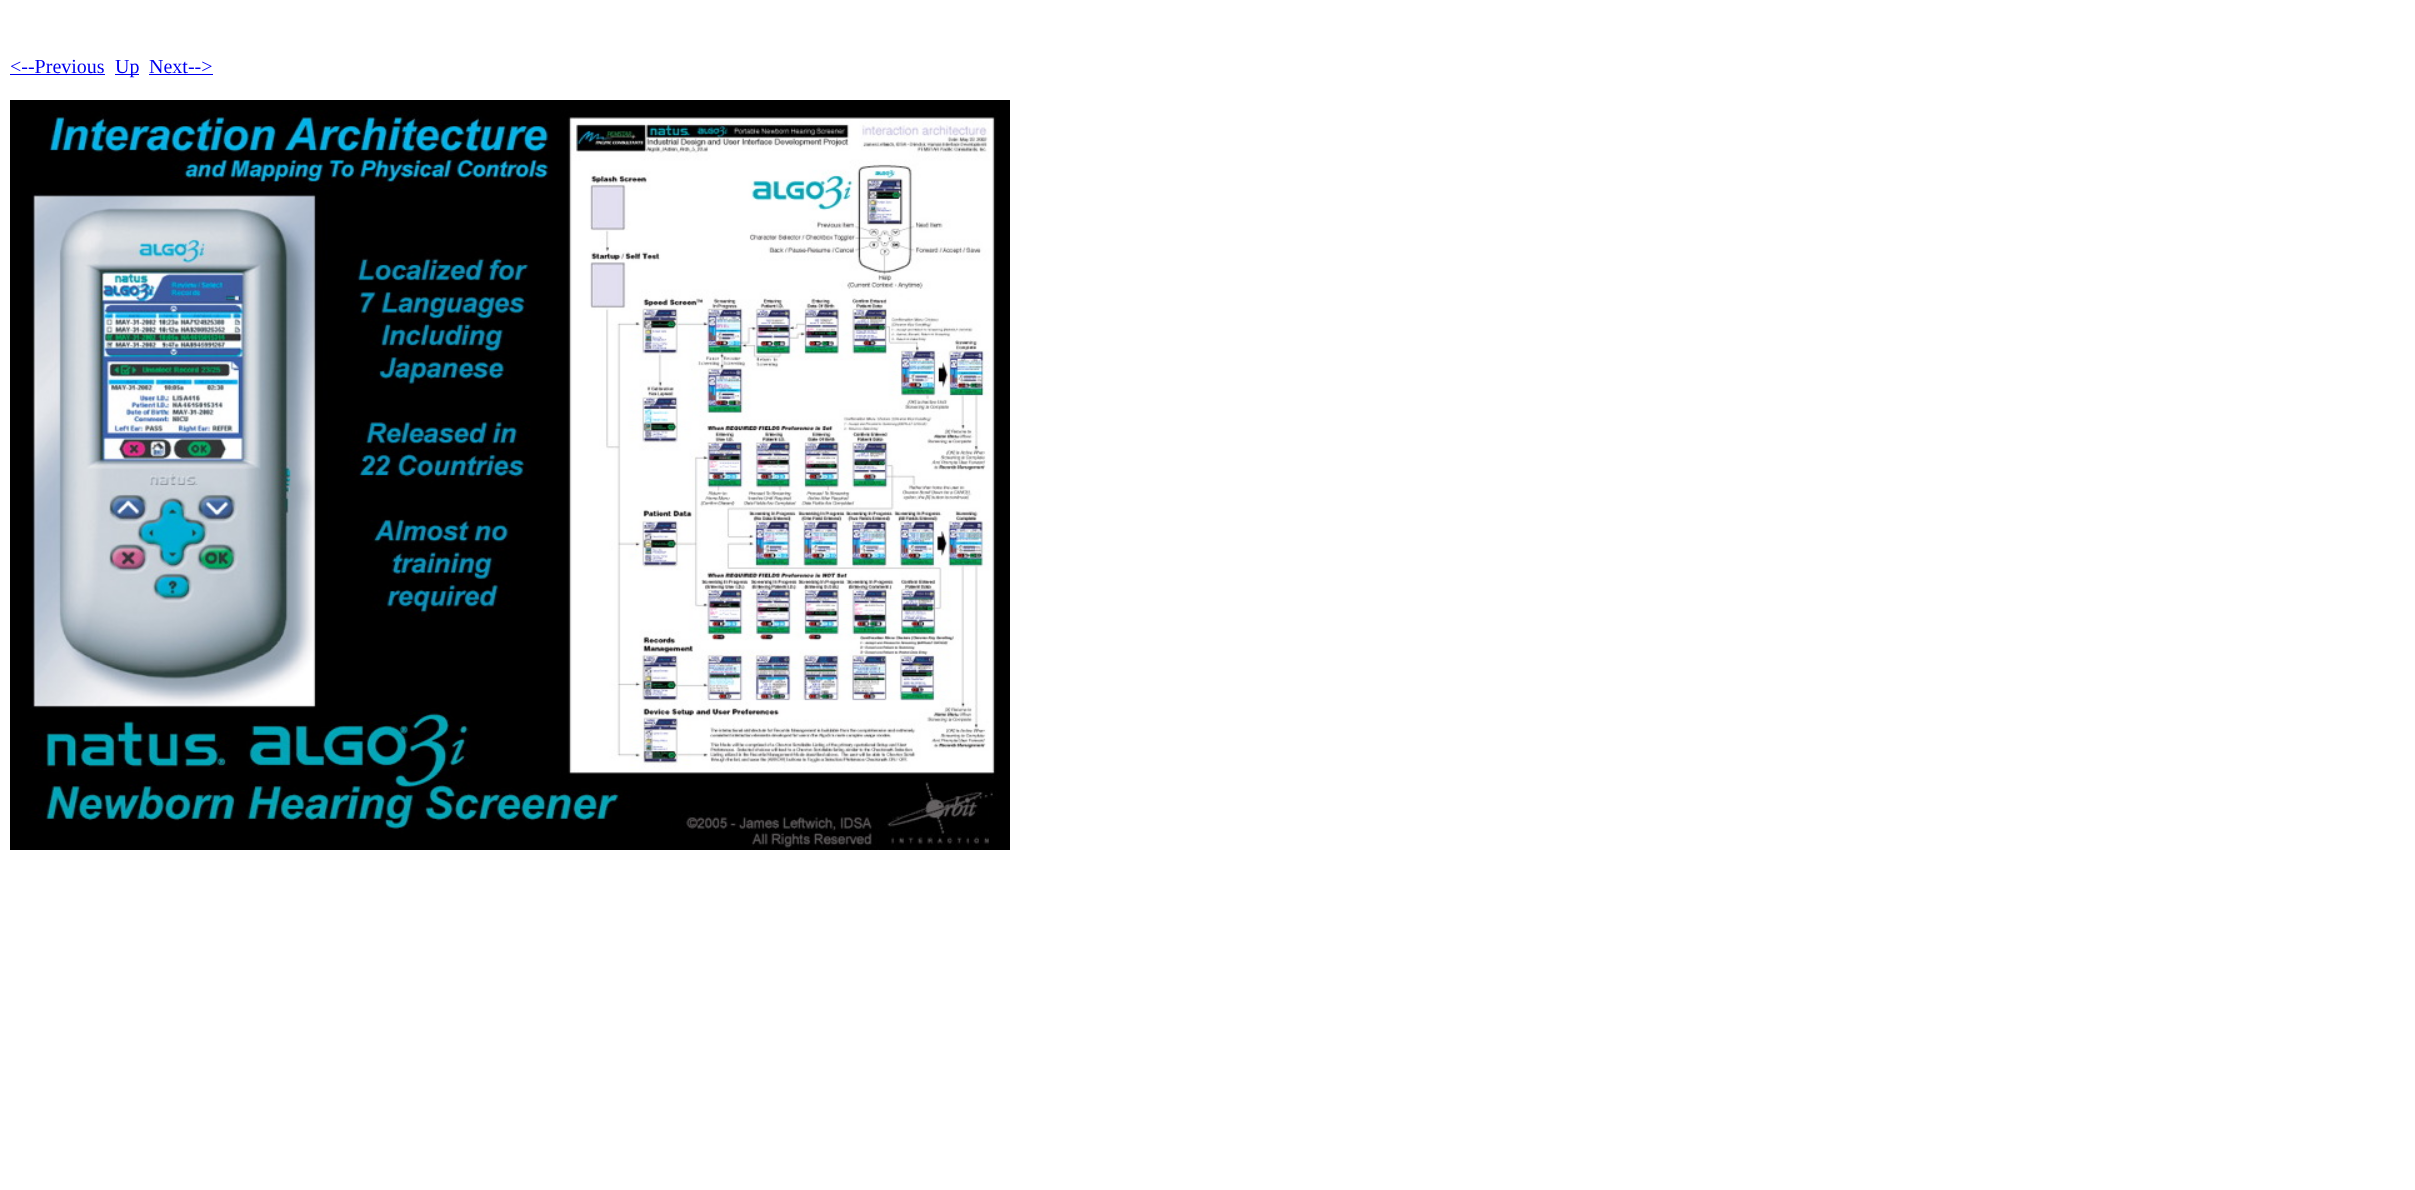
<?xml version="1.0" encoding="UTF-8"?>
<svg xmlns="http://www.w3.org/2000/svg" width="2415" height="1190">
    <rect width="100%" height="100%" fill="#FFFFFF"/>
    <text x="10" y="73" font-family="Liberation Serif" font-size="20" fill="#0000EE">&lt;--Previous</text>
    <rect x="10" y="74" width="95" height="1" fill="#0000EE"/>
    <rect x="115" y="74" width="24" height="1" fill="#0000EE"/>
    <text x="115" y="73" font-family="Liberation Serif" font-size="20" fill="#0000EE">Up</text>
    <text x="149" y="73" font-family="Liberation Serif" font-size="20" fill="#0000EE">Next--&gt;</text>
    <rect x="149" y="74" width="64" height="1" fill="#0000EE"/>
    <image x="10" y="100" width="1000" height="750" href="img_01.png"/>
</svg>
